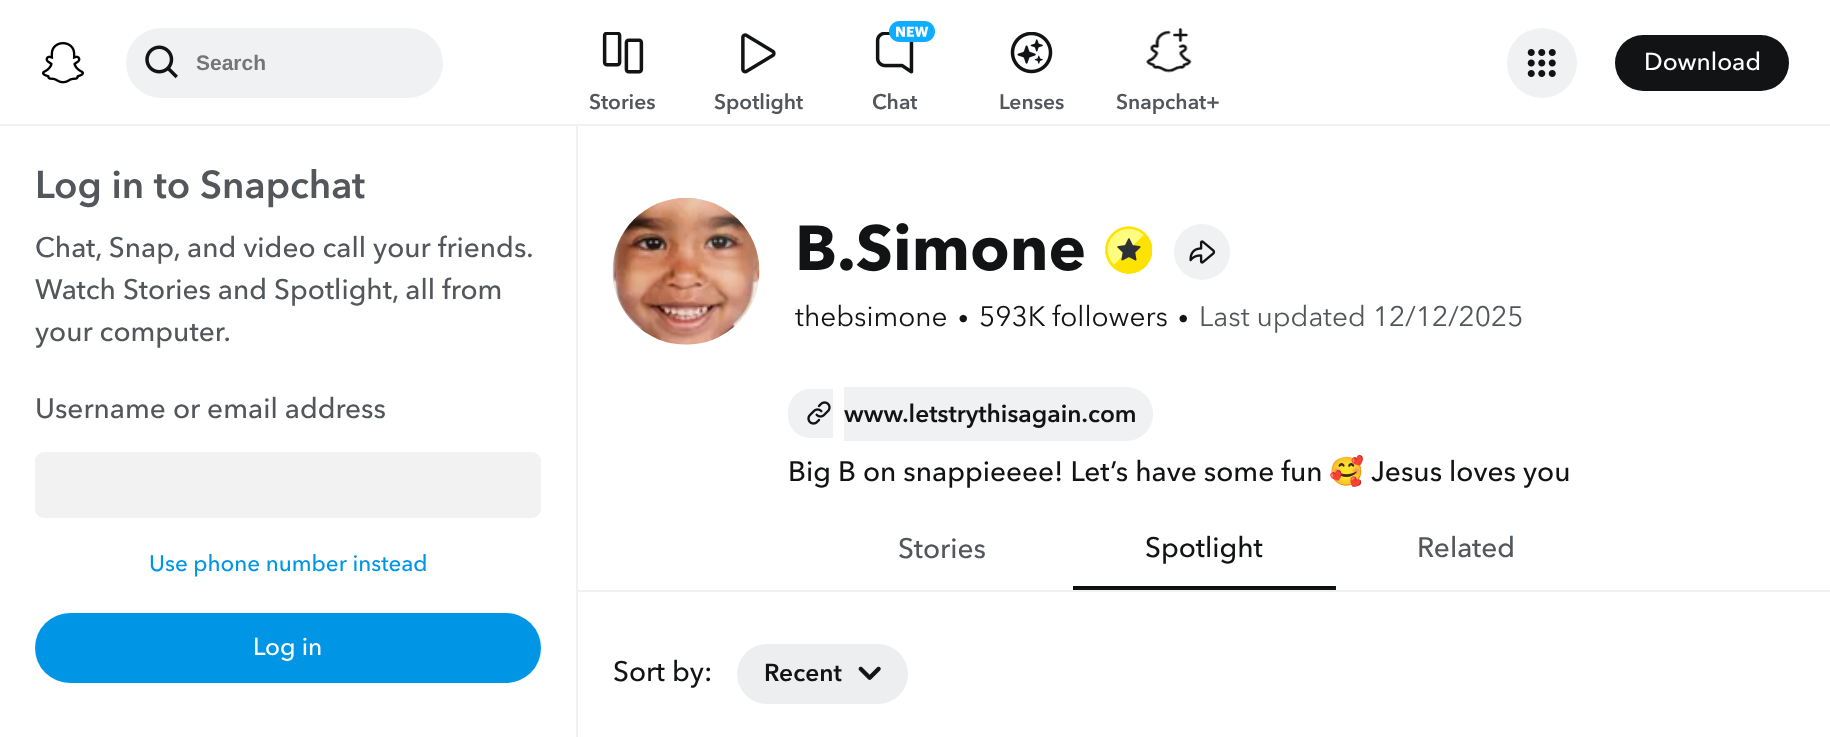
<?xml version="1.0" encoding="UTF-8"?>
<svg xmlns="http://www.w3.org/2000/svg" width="1830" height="737">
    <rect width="100%" height="100%" fill="#FFFFFF"/>
    <rect x="0" y="124" width="1830" height="2" fill="#F0F1F2"/>
    <image x="42" y="42" width="42" height="42" href="img_01.png"/>
    <rect x="126" y="28" width="317" height="70" rx="35" fill="#F0F1F2"/>
    <image x="145" y="45" width="33" height="34" href="img_02.png"/>
    <text x="196" y="70" font-family="Liberation Sans" font-size="21" font-weight="700" fill="#757575">Search</text>
    <circle cx="1542" cy="63" r="35" fill="#F0F1F2"/>
    <image x="1527" y="49" width="29" height="28" href="img_03.png"/>
    <rect x="1615" y="35" width="174" height="56" rx="28" fill="#121314"/>
    <text x="1644" y="70" font-family="Avenir Next" font-size="24.5" font-weight="500" fill="#FFFFFF">Download</text>
    <image x="602" y="32" width="42" height="42" href="img_04.png"/>
    <text x="589" y="109" font-family="Avenir Next" font-size="21" font-weight="600" fill="#53575B">Stories</text>
    <image x="741" y="33" width="35" height="41" href="img_05.png"/>
    <text x="714" y="109" font-family="Avenir Next" font-size="21" font-weight="600" fill="#53575B">Spotlight</text>
    <image x="875" y="32" width="39" height="42" href="img_07.png"/>
    <image x="889" y="21" width="46" height="21" href="img_06.png"/>
    <text x="872" y="109" font-family="Avenir Next" font-size="21" font-weight="600" fill="#53575B">Chat</text>
    <image x="1010" y="32" width="43" height="42" href="img_08.png"/>
    <text x="999" y="109" font-family="Avenir Next" font-size="21" font-weight="600" fill="#53575B">Lenses</text>
    <image x="1146" y="28" width="46" height="45" href="img_09.png"/>
    <text x="1116" y="109" font-family="Avenir Next" font-size="21" font-weight="600" fill="#53575B">Snapchat+</text>
    <image x="612" y="197" width="148" height="148" href="img_10.png"/>
    <text x="795" y="270" font-family="Avenir Next" font-size="63" font-weight="700" fill="#121314">B.Simone</text>
    <image x="1105" y="226" width="48" height="48" href="img_11.png"/>
    <circle cx="1202" cy="252" r="28" fill="#F0F1F2"/>
    <image x="1189" y="240" width="27" height="24" href="img_12.png"/>
    <text x="795" y="326" font-family="Avenir Next" font-size="28" fill="#121314">thebsimone</text>
    <text x="958" y="326" font-family="Avenir Next" font-size="21" fill="#121314">•</text>
    <text x="979" y="326" font-family="Avenir Next" font-size="28" fill="#121314">593K followers</text>
    <text x="1178" y="326" font-family="Avenir Next" font-size="21" fill="#121314">•</text>
    <text x="1199" y="326" font-family="Avenir Next" font-size="28" fill="#53575B">Last updated 12/12/2025</text>
    <path d="M 810.5 389 H 833 V 438 H 810.5 C 798 438 788 428 788 415.5 V 411.5 C 788 399 798 389 810.5 389 Z" fill="#F0F1F2"/>
    <image x="807" y="401" width="24" height="24" href="img_13.png"/>
    <path d="M 844 387 H 1126 C 1141 387 1153 399 1153 414 C 1153 429 1141 441 1126 441 H 844 Z" fill="#F0F1F2"/>
    <text x="844" y="422" font-family="Avenir Next" font-size="24.5" font-weight="600" fill="#121314">www.letstrythisagain.com</text>
    <text x="788" y="481" font-family="Avenir Next" font-size="28" font-weight="500" fill="#121314">Big B on snappieeee! Let’s have some fun</text>
    <text x="1329" y="481" font-family="Noto Color Emoji" font-size="28" fill="#121314">🥰</text>
    <text x="1371" y="481" font-family="Avenir Next" font-size="28" font-weight="500" fill="#121314">Jesus loves you</text>
    <text x="898" y="558" font-family="Avenir Next" font-size="28" font-weight="500" fill="#53575B">Stories</text>
    <text x="1145" y="557" font-family="Avenir Next" font-size="28" font-weight="500" fill="#121314">Spotlight</text>
    <text x="1417" y="557" font-family="Avenir Next" font-size="28" font-weight="500" fill="#53575B">Related</text>
    <rect x="1073" y="586" width="262" height="2" fill="#0C0D0D"/>
    <rect x="1334" y="586" width="2" height="4" fill="#121314"/>
    <rect x="1073" y="588" width="262" height="2" fill="#121314"/>
    <rect x="1073" y="586" width="2" height="4" fill="#0C0D0D"/>
    <rect x="578" y="590" width="1252" height="2" fill="#F0F1F2"/>
    <text x="613" y="681" font-family="Avenir Next" font-size="28" font-weight="500" fill="#121314">Sort by:</text>
    <rect x="737" y="644" width="171" height="60" rx="30" fill="#EDEEEF"/>
    <text x="764" y="681" font-family="Avenir Next" font-size="24.5" font-weight="600" fill="#121314">Recent</text>
    <image x="858" y="666" width="23" height="14" href="img_14.png"/>
    <rect x="576" y="126" width="2" height="611" fill="#F0F1F2"/>
    <text x="35" y="198" font-family="Avenir Next" font-size="38.5" font-weight="600" fill="#53575B">Log in to Snapchat</text>
    <text font-family="Avenir Next" font-size="28" font-weight="500" fill="#53575B">
        <tspan x="35" y="257">Chat, Snap, and video call your friends.</tspan>
        <tspan x="35" y="299">Watch Stories and Spotlight, all from</tspan>
        <tspan x="35" y="341">your computer.</tspan>
    </text>
    <text x="35" y="418" font-family="Avenir Next" font-size="28" font-weight="500" fill="#53575B">Username or email address</text>
    <rect x="35" y="452" width="506" height="66" rx="9" fill="#F2F2F2"/>
    <text x="149" y="571" font-family="Avenir Next" font-size="22.4" font-weight="500" fill="#0096E5">Use phone number instead</text>
    <rect x="35" y="613" width="506" height="70" rx="35" fill="#0096E5"/>
    <text x="253" y="655" font-family="Avenir Next" font-size="24.5" font-weight="500" fill="#FFFFFF">Log in</text>
</svg>
